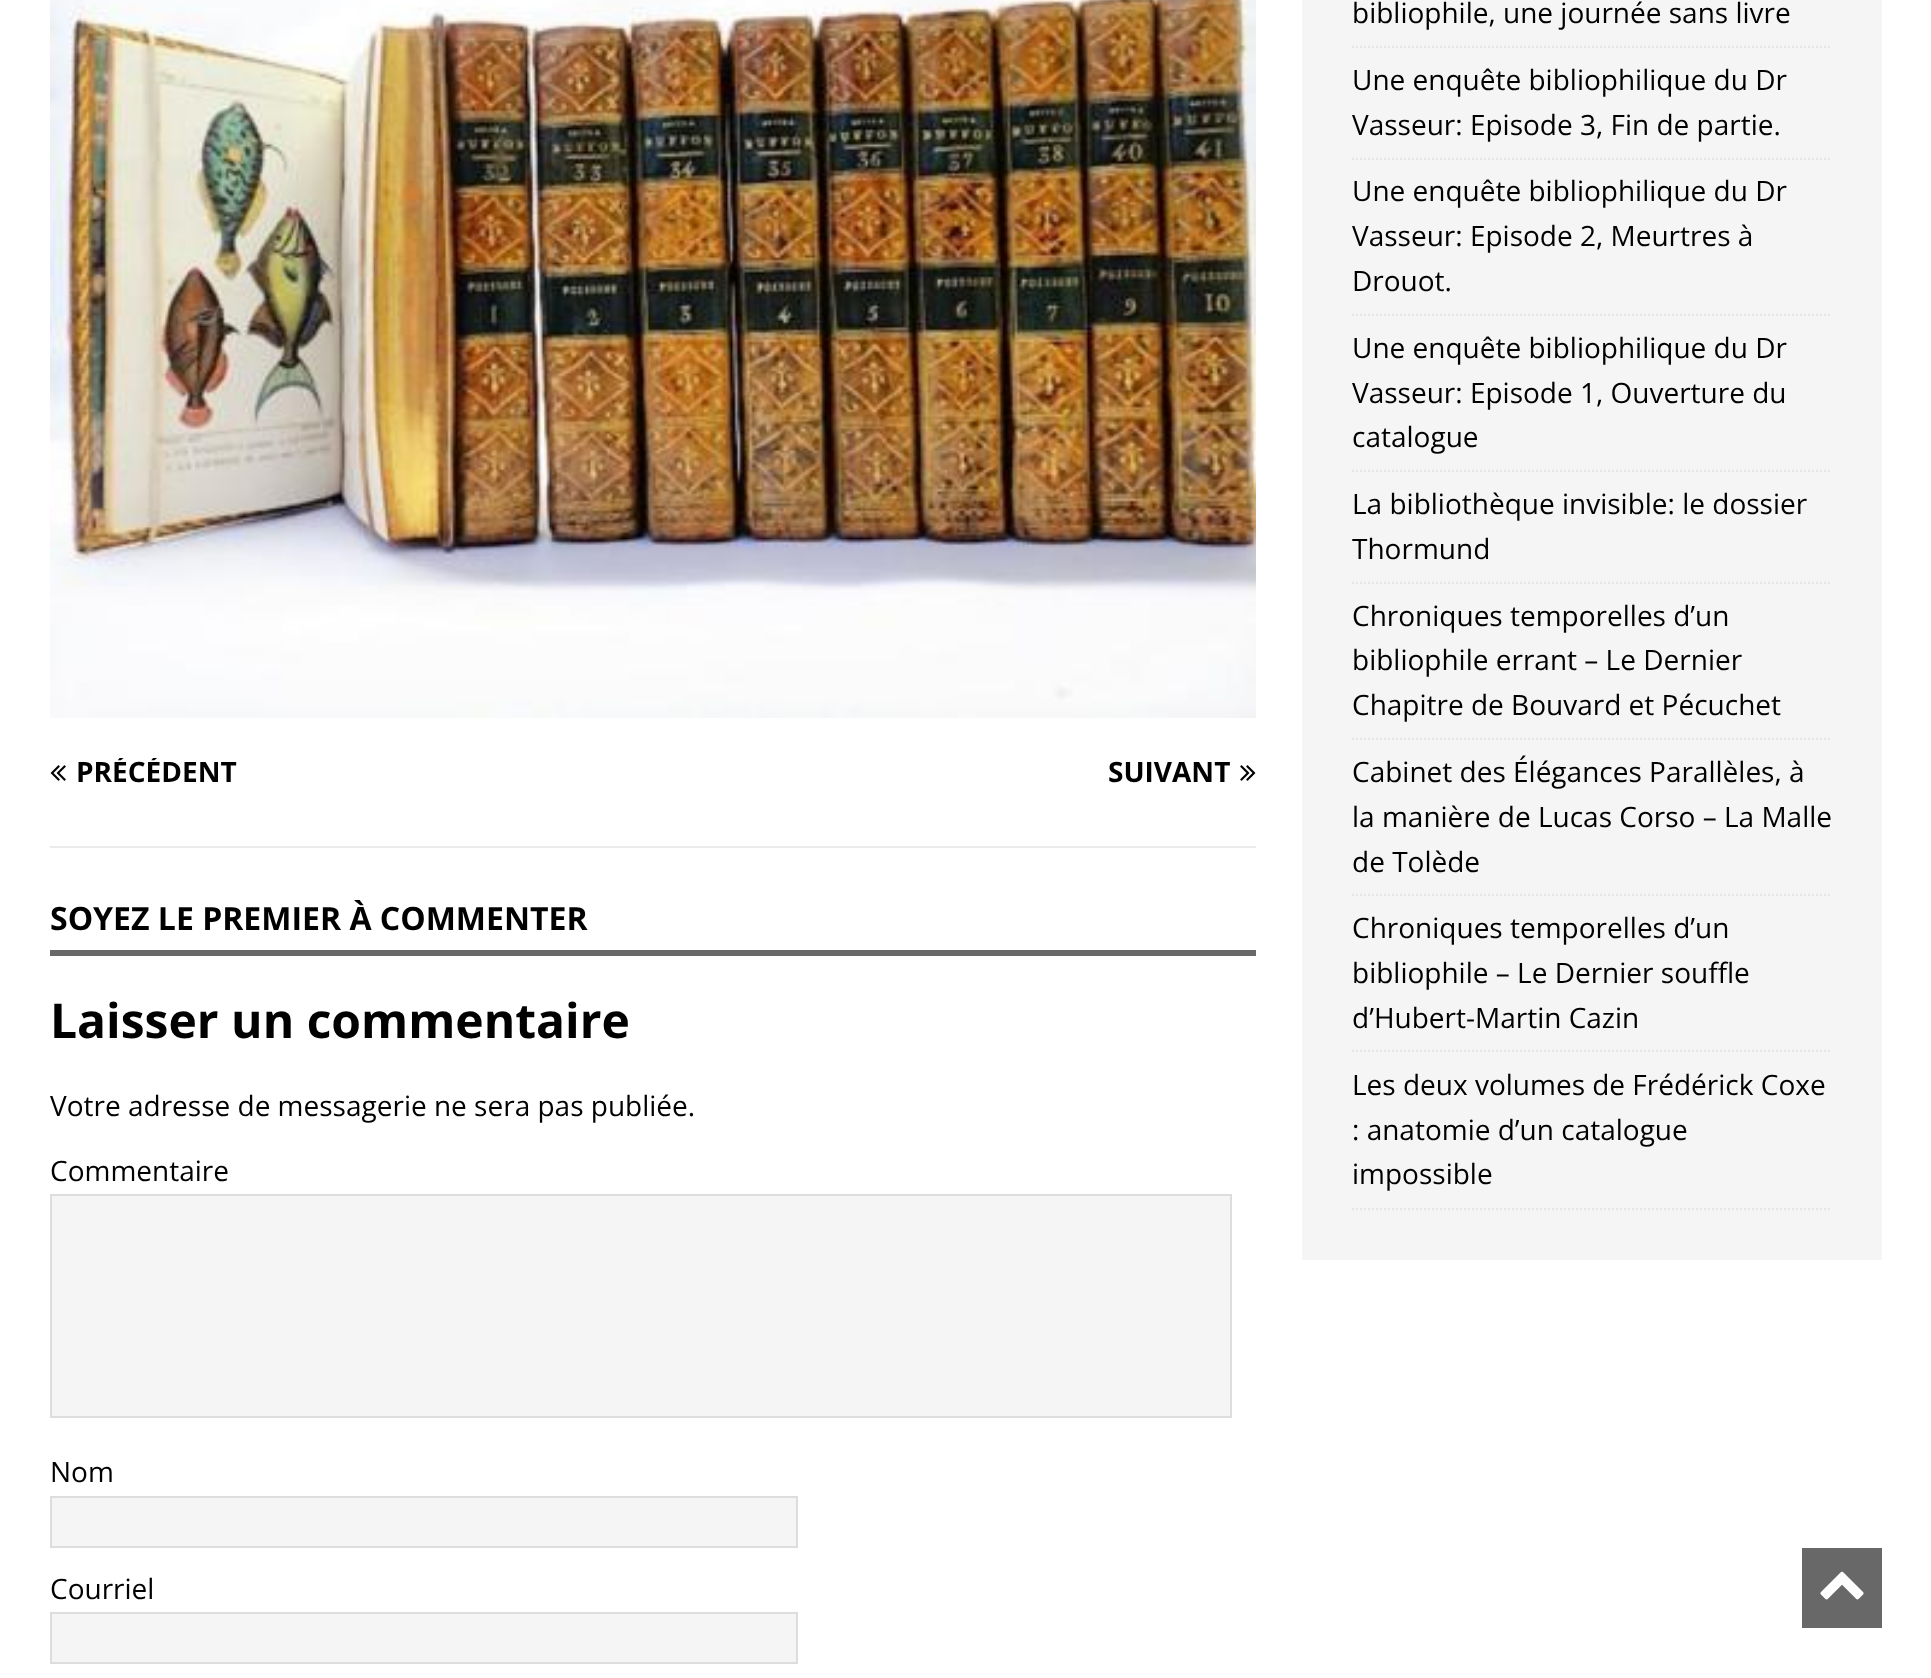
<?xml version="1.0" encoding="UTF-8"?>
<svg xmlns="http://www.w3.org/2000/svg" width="1931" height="1678">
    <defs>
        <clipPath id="clip1"><rect x="50" y="758" width="588" height="28"/></clipPath>
    </defs>
    <rect width="100%" height="100%" fill="#FFFFFF"/>
    <image x="50" y="0" width="1206" height="718" href="img_01.png"/>
    <rect x="50" y="846" width="1206" height="2" fill="#EBEBEB"/>
    <image x="50" y="765" width="16" height="16" href="img_02.png"/>
    <g clip-path="url(#clip1)">
        <text x="76" y="782" font-family="Open Sans" font-size="28" font-weight="700" fill="#000000">PRÉCÉDENT</text>
    </g>
    <text x="1108" y="782" font-family="Open Sans" font-size="28" font-weight="700" fill="#000000">SUIVANT</text>
    <image x="1240" y="765" width="16" height="16" href="img_03.png"/>
    <rect x="50" y="950" width="1206" height="6" fill="#686868"/>
    <text x="50" y="930" font-family="Open Sans" font-size="32" font-weight="700" fill="#000000">SOYEZ LE PREMIER À COMMENTER</text>
    <text x="50" y="1038" font-family="Open Sans" font-size="48" font-weight="700" fill="#000000">Laisser un commentaire</text>
    <text x="50" y="1116" font-family="Open Sans" font-size="28" fill="#000000">Votre adresse de messagerie ne sera pas publiée.</text>
    <text x="50" y="1181" font-family="Open Sans" font-size="28" fill="#000000">Commentaire</text>
    <rect x="51" y="1195" width="1180" height="222" fill="#F5F5F5" stroke="#DDDDDD" stroke-width="2"/>
    <text x="50" y="1482" font-family="Open Sans" font-size="28" fill="#000000">Nom</text>
    <rect x="51" y="1497" width="746" height="50" fill="#F5F5F5" stroke="#DDDDDD" stroke-width="2"/>
    <text x="50" y="1599" font-family="Open Sans" font-size="28" fill="#000000">Courriel</text>
    <rect x="51" y="1613" width="746" height="50" fill="#F5F5F5" stroke="#DDDDDD" stroke-width="2"/>
    <rect x="1302" y="0" width="580" height="1260" fill="#F5F5F5"/>
    <path d="M 1352 47 H 1832" fill="none" stroke="#E5E5E5" stroke-width="2" stroke-dasharray="2 2"/>
    <text x="1352" y="23" font-family="Open Sans" font-size="28" fill="#000000">bibliophile, une journée sans livre</text>
    <path d="M 1352 159 H 1832" fill="none" stroke="#E5E5E5" stroke-width="2" stroke-dasharray="2 2"/>
    <text font-family="Open Sans" font-size="28" fill="#000000">
        <tspan x="1352" y="90">Une enquête bibliophilique du Dr</tspan>
        <tspan x="1352" y="135">Vasseur: Episode 3, Fin de partie.</tspan>
    </text>
    <path d="M 1352 315 H 1832" fill="none" stroke="#E5E5E5" stroke-width="2" stroke-dasharray="2 2"/>
    <text font-family="Open Sans" font-size="28" fill="#000000">
        <tspan x="1352" y="201">Une enquête bibliophilique du Dr</tspan>
        <tspan x="1352" y="246">Vasseur: Episode 2, Meurtres à</tspan>
        <tspan x="1352" y="291">Drouot.</tspan>
    </text>
    <path d="M 1352 471 H 1832" fill="none" stroke="#E5E5E5" stroke-width="2" stroke-dasharray="2 2"/>
    <text font-family="Open Sans" font-size="28" fill="#000000">
        <tspan x="1352" y="358">Une enquête bibliophilique du Dr</tspan>
        <tspan x="1352" y="403">Vasseur: Episode 1, Ouverture du</tspan>
        <tspan x="1352" y="447">catalogue</tspan>
    </text>
    <path d="M 1352 583 H 1832" fill="none" stroke="#E5E5E5" stroke-width="2" stroke-dasharray="2 2"/>
    <text font-family="Open Sans" font-size="28" fill="#000000">
        <tspan x="1352" y="514">La bibliothèque invisible: le dossier</tspan>
        <tspan x="1352" y="559">Thormund</tspan>
    </text>
    <path d="M 1352 739 H 1832" fill="none" stroke="#E5E5E5" stroke-width="2" stroke-dasharray="2 2"/>
    <text font-family="Open Sans" font-size="28" fill="#000000">
        <tspan x="1352" y="626">Chroniques temporelles d’un</tspan>
        <tspan x="1352" y="670">bibliophile errant – Le Dernier</tspan>
        <tspan x="1352" y="715">Chapitre de Bouvard et Pécuchet</tspan>
    </text>
    <path d="M 1352 895 H 1832" fill="none" stroke="#E5E5E5" stroke-width="2" stroke-dasharray="2 2"/>
    <text font-family="Open Sans" font-size="28" fill="#000000">
        <tspan x="1352" y="782">Cabinet des Élégances Parallèles, à</tspan>
        <tspan x="1352" y="827">la manière de Lucas Corso – La Malle</tspan>
        <tspan x="1352" y="872">de Tolède</tspan>
    </text>
    <path d="M 1352 1051 H 1832" fill="none" stroke="#E5E5E5" stroke-width="2" stroke-dasharray="2 2"/>
    <text font-family="Open Sans" font-size="28" fill="#000000">
        <tspan x="1352" y="938">Chroniques temporelles d’un</tspan>
        <tspan x="1352" y="983">bibliophile – Le Dernier souffle</tspan>
        <tspan x="1352" y="1028">d’Hubert-Martin Cazin</tspan>
    </text>
    <path d="M 1352 1209 H 1832" fill="none" stroke="#E5E5E5" stroke-width="2" stroke-dasharray="2 2"/>
    <text font-family="Open Sans" font-size="28" fill="#000000">
        <tspan x="1352" y="1095">Les deux volumes de Frédérick Coxe</tspan>
        <tspan x="1352" y="1140">: anatomie d’un catalogue</tspan>
        <tspan x="1352" y="1184">impossible</tspan>
    </text>
    <rect x="1802" y="1548" width="80" height="80" fill="#686868"/>
    <image x="1820" y="1571" width="44" height="29" href="img_04.png"/>
</svg>
